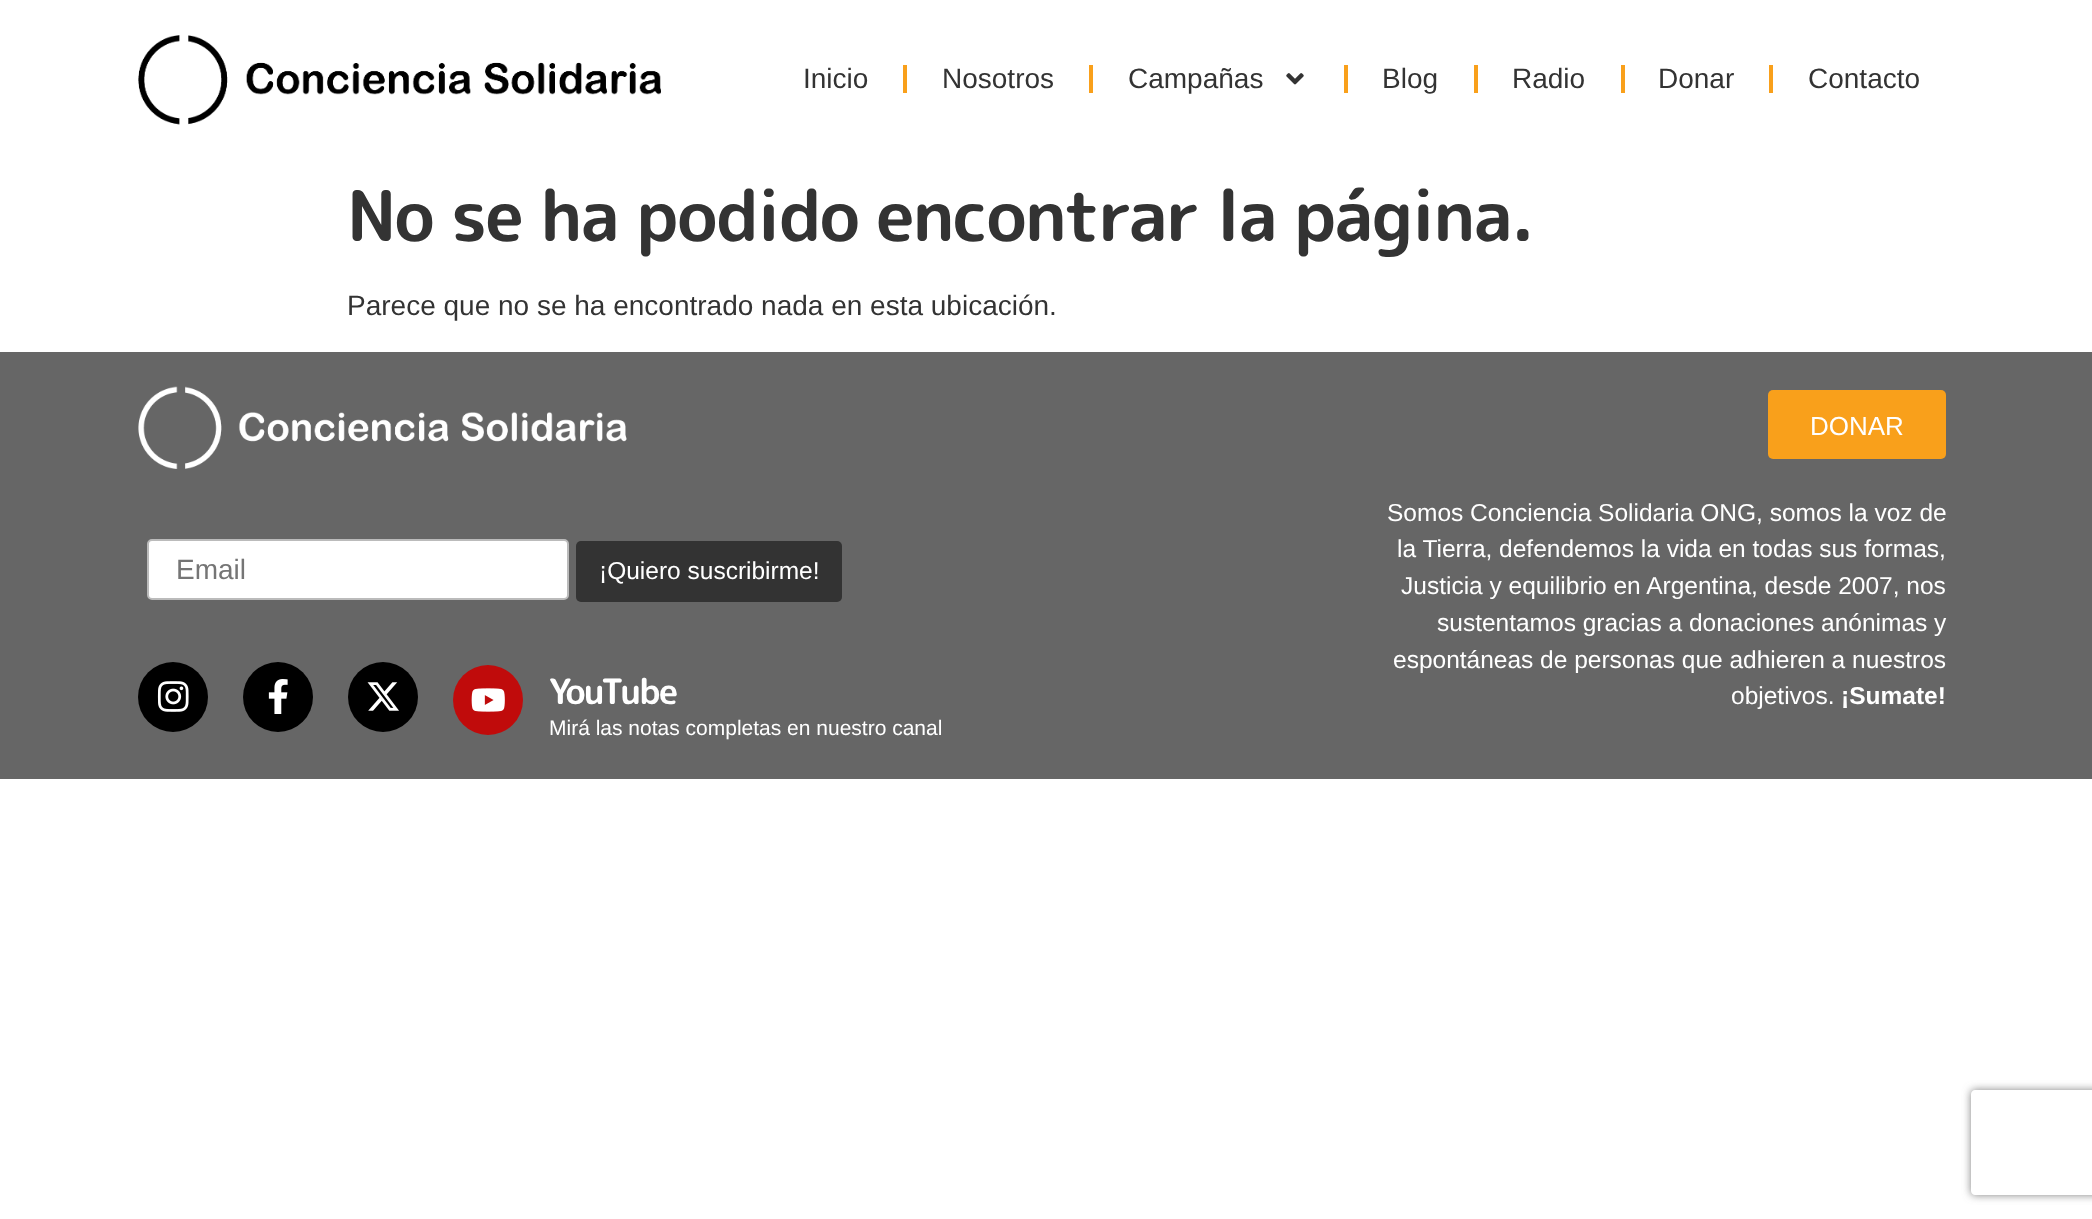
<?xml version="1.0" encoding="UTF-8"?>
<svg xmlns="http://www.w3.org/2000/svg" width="2092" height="1219">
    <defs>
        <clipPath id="clip1"><path d="M 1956 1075 H 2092 V 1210 H 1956 Z M 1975 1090 H 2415 C 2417 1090 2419 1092 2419 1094 V 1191 C 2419 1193 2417 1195 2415 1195 H 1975 C 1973 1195 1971 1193 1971 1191 V 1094 C 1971 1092 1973 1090 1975 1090 Z" clip-rule="evenodd"/></clipPath>
        <filter id="blur1" x="-50%" y="-200%" width="200%" height="500%"><feGaussianBlur stdDeviation="4.5"/></filter>
    </defs>
    <rect width="100%" height="100%" fill="#FFFFFF"/>
    <image x="138" y="35" width="523" height="90" href="img_01.png"/>
    <text x="803" y="88" font-family="Liberation Sans" font-size="28" fill="#333333">Inicio</text>
    <rect x="903" y="65" width="4" height="28" fill="#F9A01B"/>
    <text x="942" y="88" font-family="Liberation Sans" font-size="28" fill="#333333">Nosotros</text>
    <rect x="1089" y="65" width="4" height="28" fill="#F9A01B"/>
    <text x="1128" y="88" font-family="Liberation Sans" font-size="28" fill="#333333">Campañas</text>
    <image x="1286" y="73" width="18" height="12" href="img_02.png"/>
    <rect x="1344" y="65" width="4" height="28" fill="#F9A01B"/>
    <text x="1382" y="88" font-family="Liberation Sans" font-size="28" fill="#333333">Blog</text>
    <rect x="1474" y="65" width="4" height="28" fill="#F9A01B"/>
    <text x="1512" y="88" font-family="Liberation Sans" font-size="28" fill="#333333">Radio</text>
    <rect x="1621" y="65" width="4" height="28" fill="#F9A01B"/>
    <text x="1658" y="88" font-family="Liberation Sans" font-size="28" fill="#333333">Donar</text>
    <rect x="1769" y="65" width="4" height="28" fill="#F9A01B"/>
    <text x="1808" y="88" font-family="Liberation Sans" font-size="28" fill="#333333">Contacto</text>
    <text x="347" y="241" font-family="'Rounded Mplus 1c Bold'" font-size="70" font-weight="700" letter-spacing="-1.75" fill="#333333">No se ha podido encontrar la página.</text>
    <text x="347" y="315" font-family="Liberation Sans" font-size="28" fill="#333333">Parece que no se ha encontrado nada en esta ubicación.</text>
    <rect x="0" y="352" width="2092" height="427" fill="#666666"/>
    <image x="138" y="386" width="489" height="83" href="img_03.png"/>
    <rect x="148" y="540" width="420" height="59" rx="4" fill="#FFFFFF" stroke="#BBBBBB" stroke-width="2"/>
    <text x="176" y="579" font-family="Liberation Sans" font-size="28" fill="#757575">Email</text>
    <rect x="576" y="541" width="266" height="61" rx="5" fill="#333333"/>
    <text x="599" y="579" font-family="Liberation Sans" font-size="24.5" fill="#FFFFFF">¡Quiero suscribirme!</text>
    <g clip-path="url(#clip1)">
        <rect x="1971" y="1090" width="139" height="105" rx="4" fill="#808080" filter="url(#blur1)"/>
    </g>
    <circle cx="173" cy="697" r="35" fill="#000000"/>
    <image x="157" y="681" width="32" height="31" href="img_04.png"/>
    <circle cx="278" cy="697" r="35" fill="#000000"/>
    <image x="268" y="679" width="20" height="35" href="img_05.png"/>
    <circle cx="383" cy="697" r="35" fill="#000000"/>
    <image x="367" y="682" width="32" height="29" href="img_06.png"/>
    <circle cx="488" cy="700" r="35" fill="#C00B0B"/>
    <image x="471" y="688" width="34" height="24" href="img_07.png"/>
    <text x="549" y="704" font-family="'Rounded Mplus 1c Bold'" font-size="35" font-weight="700" letter-spacing="-1.75" fill="#FFFFFF">YouTube</text>
    <text x="549" y="735" font-family="Liberation Sans" font-size="21" fill="#FFFFFF">Mirá las notas completas en nuestro canal</text>
    <rect x="1768" y="390" width="178" height="69" rx="5" fill="#F9A01B"/>
    <text x="1810" y="435" font-family="Liberation Sans" font-size="26" fill="#FFFFFF">DONAR</text>
    <text x="1387" y="521" font-family="Liberation Sans" font-size="24.5" fill="#FFFFFF">Somos Conciencia Solidaria ONG, somos la voz de</text>
    <text x="1397" y="557" font-family="Liberation Sans" font-size="24.5" fill="#FFFFFF">la Tierra, defendemos la vida en todas sus formas,</text>
    <text x="1401" y="594" font-family="Liberation Sans" font-size="24.5" fill="#FFFFFF">Justicia y equilibrio en Argentina, desde 2007, nos</text>
    <text x="1437" y="631" font-family="Liberation Sans" font-size="24.5" fill="#FFFFFF">sustentamos gracias a donaciones anónimas y</text>
    <text x="1393" y="668" font-family="Liberation Sans" font-size="24.5" fill="#FFFFFF">espontáneas de personas que adhieren a nuestros</text>
    <text x="1731" y="704" font-family="Liberation Sans" font-size="24.5" fill="#FFFFFF">objetivos.</text>
    <text x="1841" y="704" font-family="Liberation Sans" font-size="24.5" font-weight="700" fill="#FFFFFF">¡Sumate!</text>
</svg>
